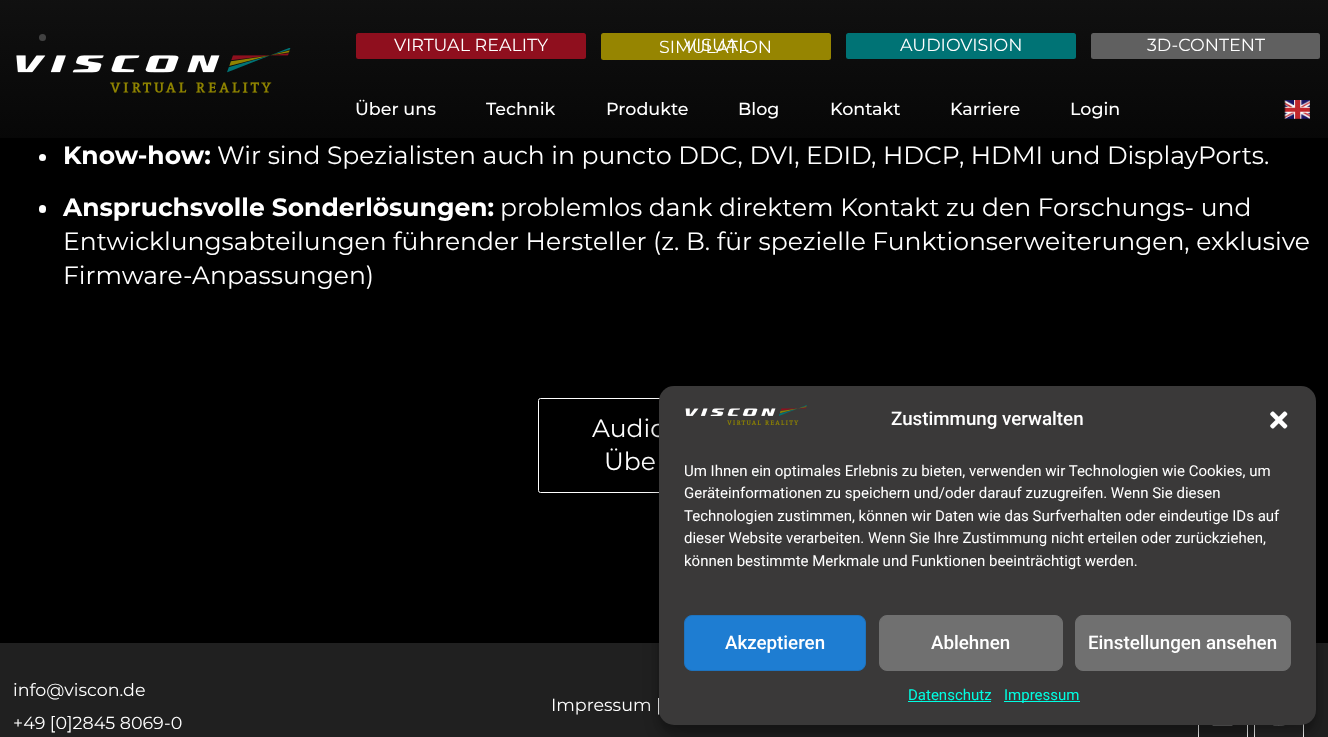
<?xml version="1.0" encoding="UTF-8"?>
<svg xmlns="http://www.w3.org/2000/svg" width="1328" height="737">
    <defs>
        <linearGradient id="g1" gradientUnits="userSpaceOnUse" x1="664" y1="0" x2="664" y2="275"><stop offset="0" stop-color="#141414" stop-opacity="0.82"/><stop offset="1" stop-color="#000000" stop-opacity="0.63"/></linearGradient>
        <filter id="blur1" x="-50%" y="-200%" width="200%" height="500%"><feGaussianBlur stdDeviation="4"/></filter>
        <filter id="blur2" x="-50%" y="-200%" width="200%" height="500%"><feGaussianBlur stdDeviation="12.5"/></filter>
    </defs>
    <rect width="100%" height="100%" fill="#000000"/>
    <circle cx="42.5" cy="37.5" r="3.5" fill="#FFFFFF"/>
    <rect x="0" y="0" width="1328" height="138" fill="url(#g1)"/>
    <image x="16" y="48" width="275" height="45" href="img_01.png"/>
    <rect x="356" y="33" width="230" height="26" rx="2.5" fill="#8F0F1E"/>
    <text x="394" y="51" font-family="Montserrat" font-size="17.5" fill="#FFFFFF">VIRTUAL REALITY</text>
    <rect x="601" y="33" width="230" height="27" rx="2.5" fill="#968501"/>
    <text x="684" y="51" font-family="Montserrat" font-size="17.5" fill="#FFFFFF">VISUAL</text>
    <text x="659" y="53" font-family="Montserrat" font-size="17.5" fill="#FFFFFF">SIMULATION</text>
    <rect x="846" y="33" width="230" height="26" rx="2.5" fill="#007375"/>
    <text x="900" y="51" font-family="Montserrat" font-size="17.5" fill="#FFFFFF">AUDIOVISION</text>
    <rect x="1091" y="33" width="229" height="26" rx="2.5" fill="#606060"/>
    <text x="1147" y="51" font-family="Montserrat" font-size="17.5" fill="#FFFFFF">3D-CONTENT</text>
    <text x="355" y="115" font-family="Montserrat" font-size="17.5" font-weight="500" fill="#FFFFFF">Über uns</text>
    <text x="486" y="115" font-family="Montserrat" font-size="17.5" font-weight="500" fill="#FFFFFF">Technik</text>
    <text x="606" y="115" font-family="Montserrat" font-size="17.5" font-weight="500" fill="#FFFFFF">Produkte</text>
    <text x="738" y="115" font-family="Montserrat" font-size="17.5" font-weight="500" fill="#FFFFFF">Blog</text>
    <text x="830" y="115" font-family="Montserrat" font-size="17.5" font-weight="500" fill="#FFFFFF">Kontakt</text>
    <text x="950" y="115" font-family="Montserrat" font-size="17.5" font-weight="500" fill="#FFFFFF">Karriere</text>
    <text x="1070" y="115" font-family="Montserrat" font-size="17.5" font-weight="500" fill="#FFFFFF">Login</text>
    <image x="1284" y="100" width="26" height="19" href="img_02.png"/>
    <circle cx="42.5" cy="157.5" r="3.5" fill="#FFFFFF"/>
    <text x="63" y="164" font-family="Montserrat" font-size="25" font-weight="700" fill="#FFFFFF">Know-how:</text>
    <text x="217" y="164" font-family="Montserrat" font-size="25" fill="#FFFFFF">Wir sind Spezialisten auch in puncto DDC, DVI, EDID, HDCP, HDMI und DisplayPorts.</text>
    <rect x="39" y="205" width="7" height="8" rx="3.5" fill="#FFFFFF"/>
    <text x="63" y="216" font-family="Montserrat" font-size="25" font-weight="700" fill="#FFFFFF">Anspruchsvolle Sonderlösungen:</text>
    <text x="500" y="216" font-family="Montserrat" font-size="25" fill="#FFFFFF">problemlos dank direktem Kontakt zu den Forschungs- und</text>
    <text font-family="Montserrat" font-size="25" fill="#FFFFFF">
        <tspan x="63" y="250">Entwicklungsabteilungen führender Hersteller (z. B. für spezielle Funktionserweiterungen, exklusive</tspan>
        <tspan x="63" y="284">Firmware-Anpassungen)</tspan>
    </text>
    <rect x="538.5" y="398.5" width="252" height="94" rx="2" fill="none" stroke="#FFFFFF"/>
    <text x="592" y="437" font-family="Montserrat" font-size="25" fill="#FFFFFF">Audio</text>
    <text x="604" y="470" font-family="Montserrat" font-size="25" fill="#FFFFFF">Übe</text>
    <rect x="0" y="643" width="1328" height="94" fill="#202020"/>
    <text font-family="Montserrat" font-size="17.5" fill="#FFFFFF">
        <tspan x="13" y="696">info@viscon.de</tspan>
        <tspan x="13" y="729">+49 [0]2845 8069-0</tspan>
    </text>
    <text x="551" y="711" font-family="Montserrat" font-size="17.5" fill="#FFFFFF">Impressum |</text>
    <rect x="1198.5" y="690.5" width="49" height="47" fill="none" stroke="#FFFFFF"/>
    <image x="1212" y="725" width="21" height="1" href="img_03.png"/>
    <rect x="1255" y="724" width="48" height="13" fill="#262626"/>
    <rect x="1254.5" y="690.5" width="49" height="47" fill="none" stroke="#FFFFFF"/>
    <image x="1273" y="725" width="12" height="1" href="img_04.png"/>
    <rect x="659" y="394" width="657" height="339" rx="15" fill="#000000" fill-opacity="0.23" filter="url(#blur1)"/>
    <rect x="659" y="399" width="657" height="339" rx="15" fill="#000000" fill-opacity="0.19" filter="url(#blur2)"/>
    <rect x="659" y="386" width="657" height="339" rx="15" fill="#3A3939"/>
    <image x="685" y="405" width="122" height="20" href="img_05.png"/>
    <text x="891" y="425" font-family="Roboto" font-size="18.75" font-weight="500" fill="#FFFFFF">Zustimmung verwalten</text>
    <image x="1270" y="411" width="18" height="18" href="img_06.png"/>
    <text font-family="Roboto" font-size="15" fill="#FFFFFF">
        <tspan x="684" y="476">Um Ihnen ein optimales Erlebnis zu bieten, verwenden wir Technologien wie Cookies, um</tspan>
        <tspan x="684" y="498">Geräteinformationen zu speichern und/oder darauf zuzugreifen. Wenn Sie diesen</tspan>
        <tspan x="684" y="521">Technologien zustimmen, können wir Daten wie das Surfverhalten oder eindeutige IDs auf</tspan>
        <tspan x="684" y="543">dieser Website verarbeiten. Wenn Sie Ihre Zustimmung nicht erteilen oder zurückziehen,</tspan>
        <tspan x="684" y="566">können bestimmte Merkmale und Funktionen beeinträchtigt werden.</tspan>
    </text>
    <rect x="684.5" y="615.5" width="181" height="55" rx="7.5" fill="#1E7DD2" stroke="#1E73BE"/>
    <text x="725" y="649" font-family="Roboto" font-size="18.75" font-weight="500" fill="#FFFFFF">Akzeptieren</text>
    <rect x="879.5" y="615.5" width="183" height="55" rx="7.5" fill="#707070" stroke="#707070"/>
    <text x="931" y="649" font-family="Roboto" font-size="18.75" font-weight="500" fill="#FFFFFF">Ablehnen</text>
    <rect x="1075.5" y="615.5" width="215" height="55" rx="7.5" fill="#707070" stroke="#707070"/>
    <text x="1088" y="649" font-family="Roboto" font-size="18.75" font-weight="500" fill="#FFFFFF">Einstellungen ansehen</text>
    <text x="908" y="700" font-family="Roboto" font-size="15" fill="#00FEE2">Datenschutz</text>
    <rect x="908" y="701" width="83" height="1" fill="#00FEE2"/>
    <rect x="1004" y="701" width="76" height="1" fill="#00FEE2"/>
    <text x="1004" y="700" font-family="Roboto" font-size="15" fill="#00FEE2">Impressum</text>
</svg>
